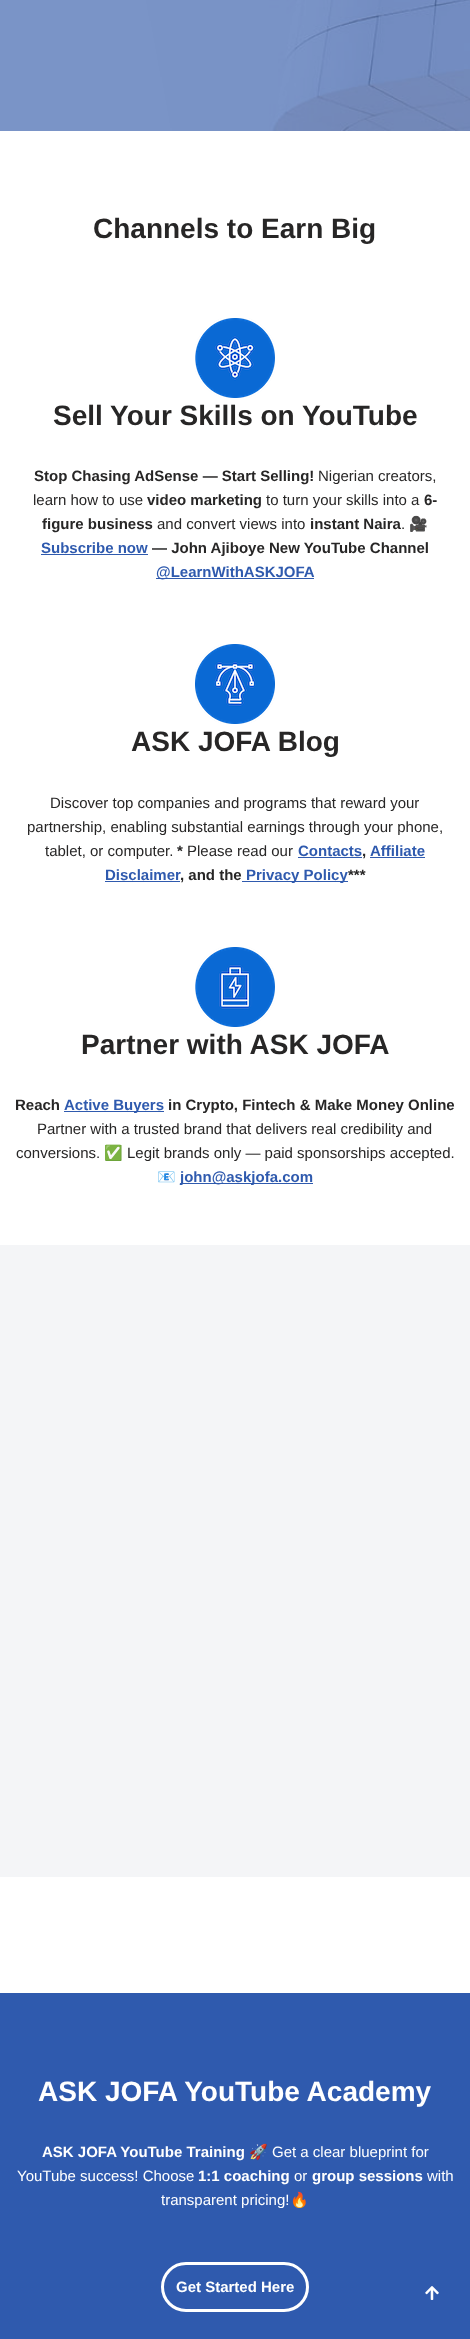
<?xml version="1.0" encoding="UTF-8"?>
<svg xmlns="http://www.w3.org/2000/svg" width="470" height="2339">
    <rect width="100%" height="100%" fill="#FFFFFF"/>
    <image x="0" y="0" width="470" height="131" href="img_01.png"/>
    <text x="93" y="238" font-family="Liberation Sans" font-size="28" font-weight="700" fill="#272626">Channels to Earn Big</text>
    <image x="195" y="318" width="80" height="80" href="img_02.png"/>
    <text x="53" y="425" font-family="Liberation Sans" font-size="28" font-weight="700" fill="#272626">Sell Your Skills on YouTube</text>
    <text x="34" y="481" font-family="Liberation Sans" font-size="15" font-weight="700" fill="#272626">Stop Chasing AdSense — Start Selling!</text>
    <text x="318" y="481" font-family="Liberation Sans" font-size="15" fill="#272626">Nigerian creators,</text>
    <text x="33" y="505" font-family="Liberation Sans" font-size="15" fill="#272626">learn how to use</text>
    <text x="147" y="505" font-family="Liberation Sans" font-size="15" font-weight="700" fill="#272626">video marketing</text>
    <text x="266" y="505" font-family="Liberation Sans" font-size="15" fill="#272626">to turn your skills into a</text>
    <text x="424" y="505" font-family="Liberation Sans" font-size="15" font-weight="700" fill="#272626">6-</text>
    <text x="42" y="529" font-family="Liberation Sans" font-size="15" font-weight="700" fill="#272626">figure business</text>
    <text x="157" y="529" font-family="Liberation Sans" font-size="15" fill="#272626">and convert views into</text>
    <text x="310" y="529" font-family="Liberation Sans" font-size="15" font-weight="700" fill="#272626">instant Naira</text>
    <text x="401" y="529" font-family="Liberation Sans" font-size="15" fill="#272626">.</text>
    <text x="409" y="529" font-family="Noto Color Emoji" font-size="15" fill="#272626">🎥</text>
    <text x="41" y="553" font-family="Liberation Sans" font-size="15" font-weight="700" fill="#2F5AAE">Subscribe now</text>
    <rect x="41" y="554" width="107" height="1" fill="#2F5AAE"/>
    <text x="152" y="553" font-family="Liberation Sans" font-size="15" font-weight="700" fill="#272626">— John Ajiboye New YouTube Channel</text>
    <rect x="156" y="578" width="158" height="1" fill="#2F5AAE"/>
    <text x="156" y="577" font-family="Liberation Sans" font-size="15" font-weight="700" fill="#2F5AAE">@LearnWithASKJOFA</text>
    <image x="195" y="644" width="80" height="80" href="img_03.png"/>
    <text x="131" y="751" font-family="Liberation Sans" font-size="28" font-weight="700" fill="#272626">ASK JOFA Blog</text>
    <text x="50" y="808" font-family="Liberation Sans" font-size="15" fill="#272626">Discover top companies and programs that reward your</text>
    <text x="27" y="832" font-family="Liberation Sans" font-size="15" fill="#272626">partnership, enabling substantial earnings through your phone,</text>
    <text x="45" y="856" font-family="Liberation Sans" font-size="15" fill="#272626">tablet, or computer.</text>
    <text x="177" y="856" font-family="Liberation Sans" font-size="15" font-weight="700" fill="#272626">*</text>
    <text x="187" y="856" font-family="Liberation Sans" font-size="15" fill="#272626">Please read our</text>
    <text x="298" y="856" font-family="Liberation Sans" font-size="15" font-weight="700" fill="#2F5AAE">Contacts</text>
    <text x="362" y="856" font-family="Liberation Sans" font-size="15" font-weight="700" fill="#272626">,</text>
    <rect x="298" y="857" width="64" height="1" fill="#2F5AAE"/>
    <rect x="370" y="857" width="55" height="1" fill="#2F5AAE"/>
    <text x="370" y="856" font-family="Liberation Sans" font-size="15" font-weight="700" fill="#2F5AAE">Affiliate</text>
    <text x="105" y="880" font-family="Liberation Sans" font-size="15" font-weight="700" fill="#2F5AAE">Disclaimer</text>
    <text x="180" y="880" font-family="Liberation Sans" font-size="15" font-weight="700" fill="#272626">, and the</text>
    <rect x="105" y="881" width="75" height="1" fill="#2F5AAE"/>
    <rect x="242" y="881" width="106" height="1" fill="#2F5AAE"/>
    <text x="246" y="880" font-family="Liberation Sans" font-size="15" font-weight="700" fill="#2F5AAE">Privacy Policy</text>
    <text x="348" y="880" font-family="Liberation Sans" font-size="15" font-weight="700" fill="#272626">***</text>
    <image x="195" y="947" width="80" height="80" href="img_04.png"/>
    <text x="81" y="1054" font-family="Liberation Sans" font-size="28" font-weight="700" fill="#272626">Partner with ASK JOFA</text>
    <text x="15" y="1110" font-family="Liberation Sans" font-size="15" font-weight="700" fill="#272626">Reach</text>
    <rect x="64" y="1111" width="100" height="1" fill="#2F5AAE"/>
    <text x="64" y="1110" font-family="Liberation Sans" font-size="15" font-weight="700" fill="#2F5AAE">Active Buyers</text>
    <text x="168" y="1110" font-family="Liberation Sans" font-size="15" font-weight="700" fill="#272626">in Crypto, Fintech &amp; Make Money Online</text>
    <text x="37" y="1134" font-family="Liberation Sans" font-size="15" fill="#272626">Partner with a trusted brand that delivers real credibility and</text>
    <text x="16" y="1158" font-family="Liberation Sans" font-size="15" fill="#272626">conversions.</text>
    <text x="104" y="1158" font-family="Noto Color Emoji" font-size="15" fill="#272626">✅</text>
    <text x="127" y="1158" font-family="Liberation Sans" font-size="15" fill="#272626">Legit brands only — paid sponsorships accepted.</text>
    <text x="157" y="1182" font-family="Noto Color Emoji" font-size="15" fill="#272626">📧</text>
    <rect x="180" y="1183" width="133" height="1" fill="#2F5AAE"/>
    <text x="180" y="1182" font-family="Liberation Sans" font-size="15" font-weight="700" fill="#2F5AAE">john@askjofa.com</text>
    <rect x="0" y="1245" width="470" height="632" fill="#F4F5F7"/>
    <rect x="0" y="1993" width="470" height="346" fill="#2F5AAE"/>
    <text x="38" y="2101" font-family="Liberation Sans" font-size="28" font-weight="700" fill="#FFFFFF">ASK JOFA YouTube Academy</text>
    <text x="42" y="2157" font-family="Liberation Sans" font-size="15" font-weight="700" fill="#FFFFFF">ASK JOFA YouTube Training</text>
    <text x="249" y="2157" font-family="Noto Color Emoji" font-size="15" font-weight="700" fill="#FFFFFF">🚀</text>
    <text x="272" y="2157" font-family="Liberation Sans" font-size="15" fill="#FFFFFF">Get a clear blueprint for</text>
    <text x="17" y="2181" font-family="Liberation Sans" font-size="15" fill="#FFFFFF">YouTube success! Choose</text>
    <text x="198" y="2181" font-family="Liberation Sans" font-size="15" font-weight="700" fill="#FFFFFF">1:1 coaching</text>
    <text x="294" y="2181" font-family="Liberation Sans" font-size="15" fill="#FFFFFF">or</text>
    <text x="312" y="2181" font-family="Liberation Sans" font-size="15" font-weight="700" fill="#FFFFFF">group sessions</text>
    <text x="427" y="2181" font-family="Liberation Sans" font-size="15" fill="#FFFFFF">with</text>
    <text x="161" y="2205" font-family="Liberation Sans" font-size="15" fill="#FFFFFF">transparent pricing!</text>
    <text x="290" y="2205" font-family="Noto Color Emoji" font-size="15" fill="#FFFFFF">🔥</text>
    <rect x="162.5" y="2263.5" width="145" height="47" rx="23.5" fill="none" stroke="#FFFFFF" stroke-width="3"/>
    <text x="176" y="2292" font-family="Liberation Sans" font-size="15" font-weight="700" fill="#FFFFFF">Get Started Here</text>
    <image x="425" y="2286" width="14" height="14" href="img_05.png"/>
</svg>
